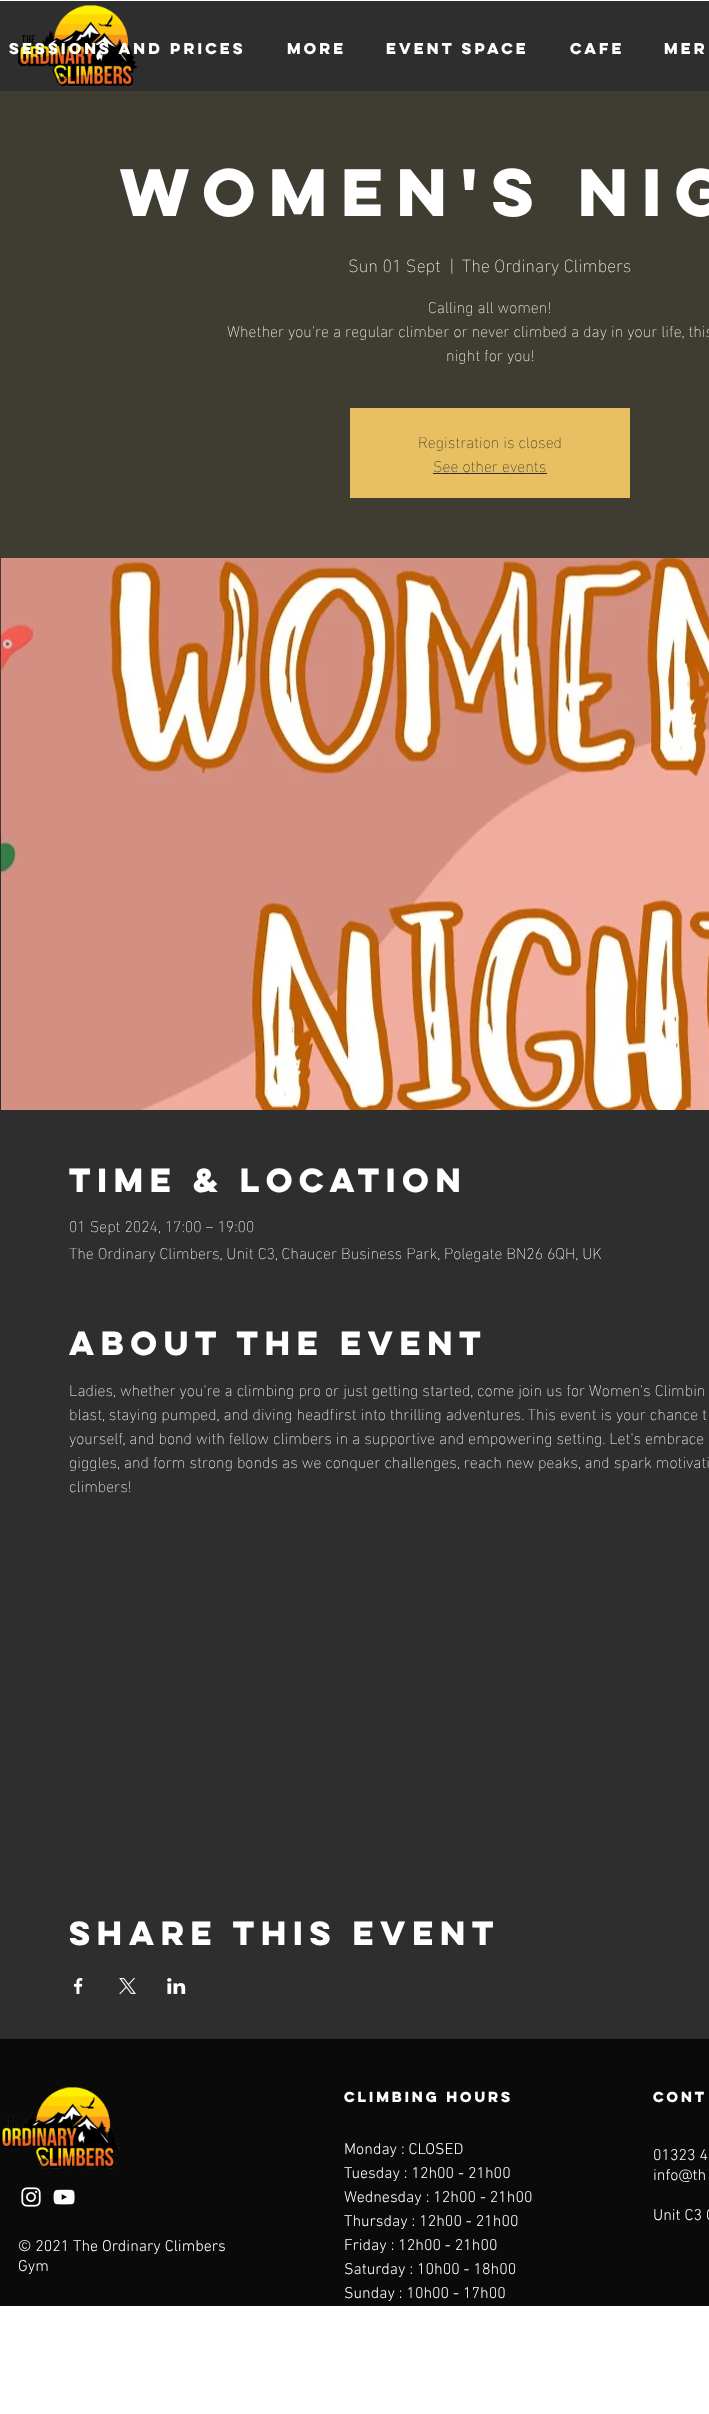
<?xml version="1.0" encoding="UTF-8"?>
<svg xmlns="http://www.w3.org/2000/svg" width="709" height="2414">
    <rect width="100%" height="100%" fill="#FFFFFF"/>
    <rect x="0" y="1" width="709" height="90" fill="#2D2E2D"/>
    <image x="18" y="5" width="120" height="82" href="img_01.png"/>
    <text x="9" y="54" font-family="'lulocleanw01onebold'" font-size="14" font-weight="700" fill="#FFFFFF">Sessions and Prices</text>
    <text x="287" y="54" font-family="'lulocleanw01onebold'" font-size="14" font-weight="700" fill="#FFFFFF">more</text>
    <text x="386" y="54" font-family="'lulocleanw01onebold'" font-size="14" font-weight="700" fill="#FFFFFF">EVENT SPACE</text>
    <text x="570" y="54" font-family="'lulocleanw01onebold'" font-size="14" font-weight="700" fill="#FFFFFF">CAFE</text>
    <text x="664" y="54" font-family="'lulocleanw01onebold'" font-size="14" font-weight="700" fill="#FFFFFF">MER</text>
    <rect x="0" y="91" width="709" height="743" fill="#3F3D32"/>
    <text x="120" y="216" font-family="'lulocleanw01onebold'" font-size="60" font-weight="700" fill="#FFFFFF">Women's Nig</text>
    <text x="348" y="272" font-family="'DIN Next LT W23'" font-size="18" font-weight="200" fill="#FFFFFF">Sun 01 Sept</text>
    <text x="450" y="272" font-family="'DIN Next LT W23'" font-size="18" font-weight="200" fill="#FFFFFF">|</text>
    <text x="462" y="272" font-family="'DIN Next LT W23'" font-size="18" font-weight="200" fill="#FFFFFF">The Ordinary Climbers</text>
    <text x="428" y="313" font-family="'DIN Next LT W23'" font-size="16" font-weight="200" fill="#FFFFFF">Calling all women!</text>
    <text x="227" y="337" font-family="'DIN Next LT W23'" font-size="16" font-weight="200" fill="#FFFFFF">Whether you're a regular climber or never climbed a day in your life, this</text>
    <text x="446" y="361" font-family="'DIN Next LT W23'" font-size="16" font-weight="200" fill="#FFFFFF">night for you!</text>
    <rect x="350" y="408" width="280" height="90" fill="#E8C061"/>
    <text x="418" y="448" font-family="'DIN Next LT W23'" font-size="16" font-weight="200" fill="#2D2E2D">Registration is closed</text>
    <text x="433" y="472" font-family="'DIN Next LT W23'" font-size="16" font-weight="200" fill="#2D2E2D">See other events</text>
    <rect x="433" y="473" width="114" height="1" fill="#2D2E2D"/>
    <rect x="0" y="834" width="709" height="1205" fill="#2D2E2D"/>
    <image x="1" y="558" width="708" height="552" href="img_02.png"/>
    <text x="69" y="1192" font-family="'lulocleanw01onebold'" font-size="30" font-weight="700" fill="#FFFFFF">Time &amp; Location</text>
    <text font-family="'DIN Next LT W23'" font-size="16" font-weight="200" fill="#FFFFFF">
        <tspan x="69" y="1232">01 Sept 2024, 17:00 – 19:00</tspan>
        <tspan x="69" y="1259">The Ordinary Climbers, Unit C3, Chaucer Business Park, Polegate BN26 6QH, UK</tspan>
    </text>
    <text x="69" y="1355" font-family="'lulocleanw01onebold'" font-size="30" font-weight="700" fill="#FFFFFF">About the event</text>
    <text font-family="'DIN Next LT W23'" font-size="16" font-weight="200" fill="#FFFFFF">
        <tspan x="69" y="1396">Ladies, whether you're a climbing pro or just getting started, come join us for Women's Climbin</tspan>
        <tspan x="69" y="1420">blast, staying pumped, and diving headfirst into thrilling adventures. This event is your chance t</tspan>
        <tspan x="69" y="1444">yourself, and bond with fellow climbers in a supportive and empowering setting. Let's embrace</tspan>
        <tspan x="69" y="1468">giggles, and form strong bonds as we conquer challenges, reach new peaks, and spark motivati</tspan>
        <tspan x="69" y="1492">climbers!</tspan>
    </text>
    <text x="69" y="1945" font-family="'lulocleanw01onebold'" font-size="30" font-weight="700" fill="#FFFFFF">Share this event</text>
    <image x="74" y="1978" width="9" height="16" href="img_03.png"/>
    <image x="119" y="1978" width="17" height="16" href="img_04.png"/>
    <image x="167" y="1978" width="19" height="16" href="img_05.png"/>
    <rect x="0" y="2039" width="709" height="267" fill="#0A0A0A"/>
    <text x="344" y="2102" font-family="'lulocleanw01onebold'" font-size="13" font-weight="700" fill="#FFFFFF">CLIMBING HOURS</text>
    <text font-family="'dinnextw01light'" font-size="16" font-weight="300" fill="#FFFFFF">
        <tspan x="344" y="2154">Monday : CLOSED</tspan>
        <tspan x="344" y="2178">Tuesday : 12h00 - 21h00</tspan>
        <tspan x="344" y="2202">Wednesday : 12h00 - 21h00</tspan>
        <tspan x="344" y="2226">Thursday : 12h00 - 21h00</tspan>
        <tspan x="344" y="2250">Friday : 12h00 - 21h00</tspan>
        <tspan x="344" y="2274">Saturday : 10h00 - 18h00</tspan>
        <tspan x="344" y="2298">Sunday : 10h00 - 17h00</tspan>
    </text>
    <text x="653" y="2102" font-family="'lulocleanw01onebold'" font-size="13" font-weight="700" fill="#FFFFFF">cont</text>
    <text font-family="'dinnextw01light'" font-size="16" font-weight="300" fill="#FFFFFF">
        <tspan x="653" y="2160">01323 4</tspan>
        <tspan x="653" y="2180">info@th</tspan>
    </text>
    <text x="653" y="2220" font-family="'dinnextw01light'" font-size="16" font-weight="300" fill="#FFFFFF">Unit C3 C</text>
    <image x="0" y="2087" width="120" height="83" href="img_06.png"/>
    <image x="21" y="2187" width="20" height="20" href="img_07.png"/>
    <image x="53" y="2189" width="22" height="16" href="img_08.png"/>
    <text font-family="'dinnextw01light'" font-size="16" font-weight="300" fill="#FFFFFF">
        <tspan x="18" y="2251">© 2021 The Ordinary Climbers</tspan>
        <tspan x="18" y="2271">Gym</tspan>
    </text>
</svg>
